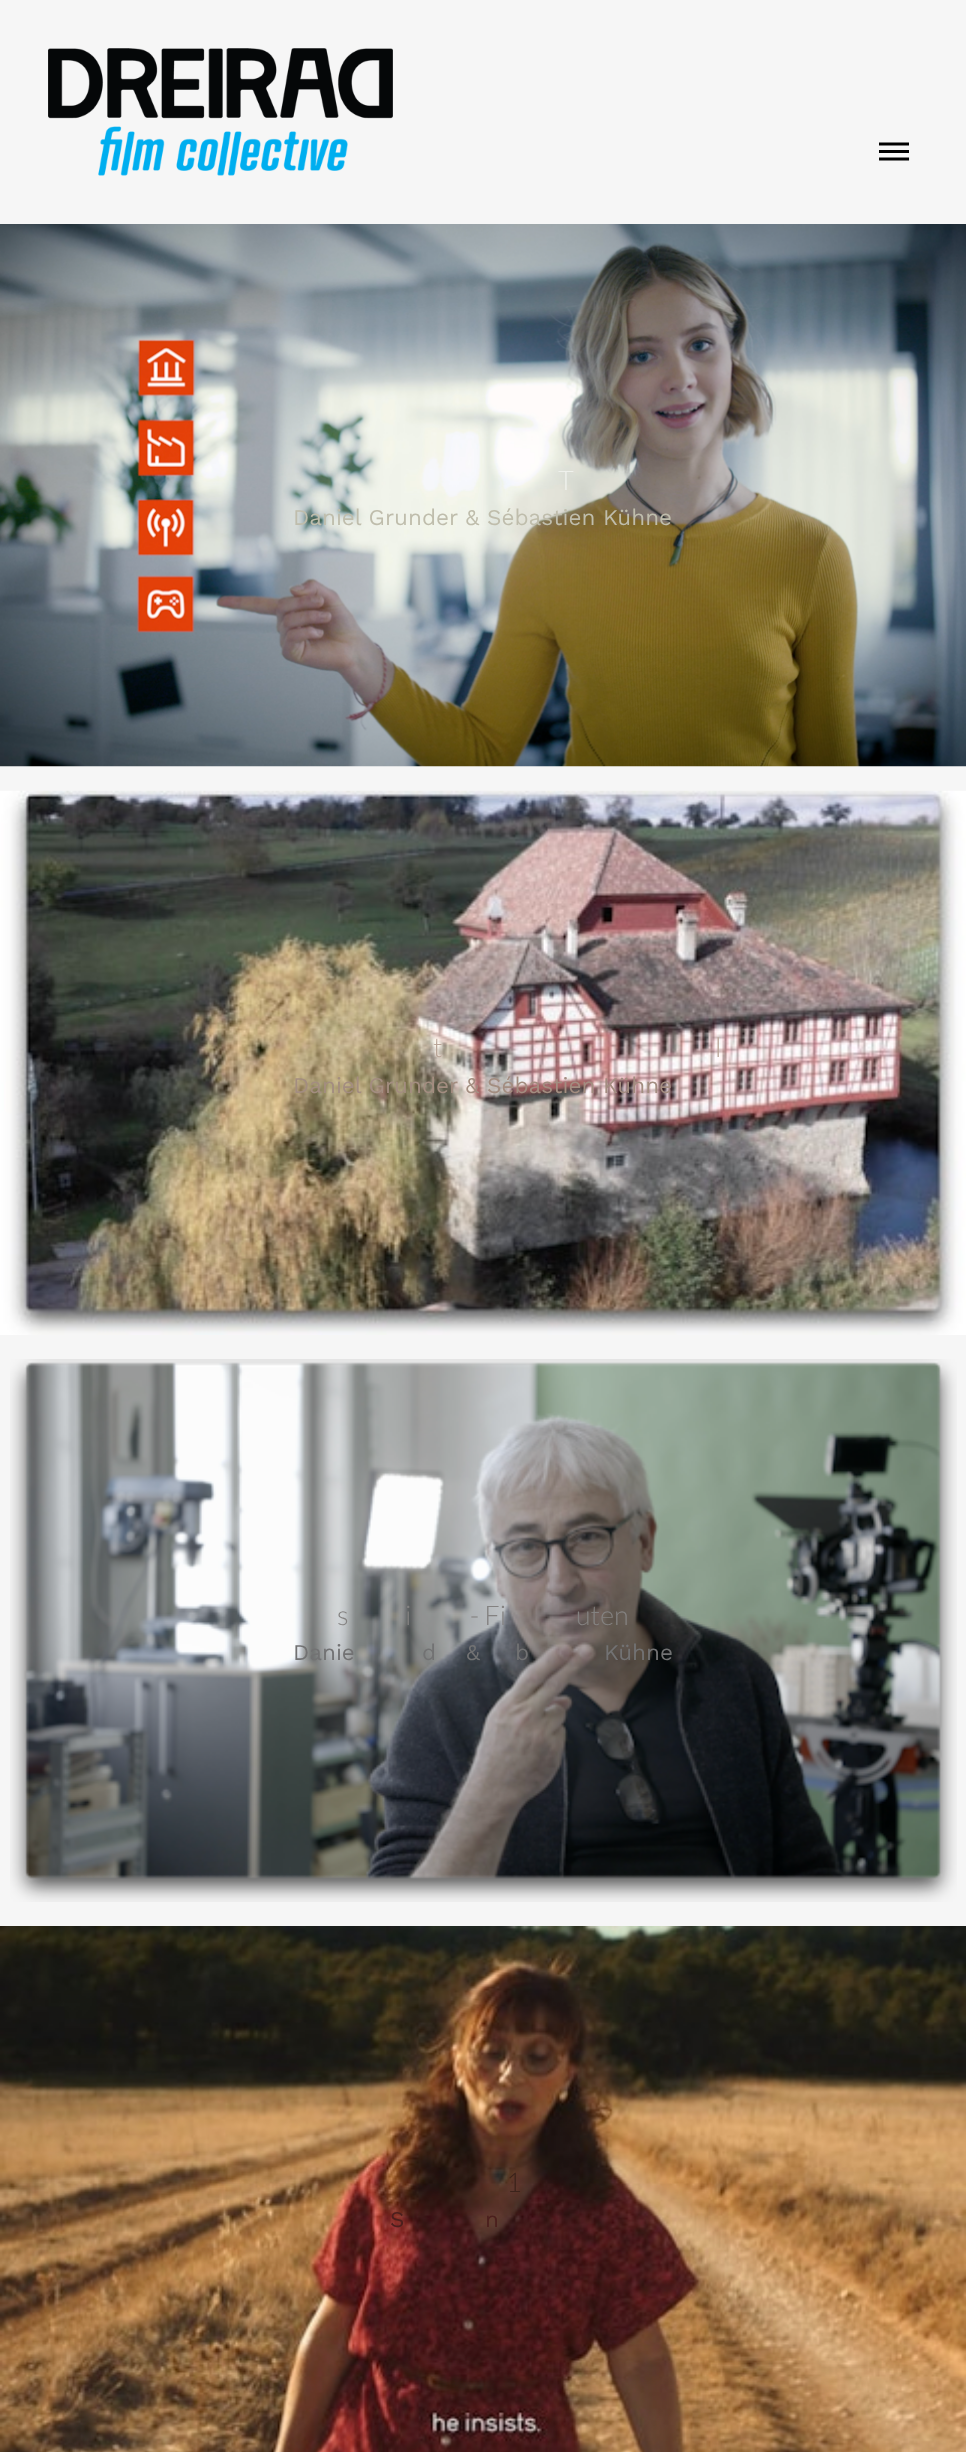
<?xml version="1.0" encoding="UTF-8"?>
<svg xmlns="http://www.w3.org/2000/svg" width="966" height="2452">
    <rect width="100%" height="100%" fill="#F6F6F6"/>
    <image x="48" y="48" width="345" height="128" href="img_01.png"/>
    <image x="879" y="142" width="31" height="19" href="img_02.png"/>
    <image x="0" y="224" width="966" height="543" href="img_03.png"/>
    <text x="558" y="490" font-family="Lato" font-size="27" font-weight="300" fill="#EFF1EC">T</text>
    <text x="293" y="525" font-family="Work Sans" font-size="22.5" fill="#BFBDAC">Daniel Grunder &amp; Sébastien Kühne</text>
    <image x="0" y="790" width="966" height="545" href="img_04.png"/>
    <text x="433" y="1057" font-family="Lato" font-size="27" font-weight="300" fill="#B9A597">t</text>
    <text x="715" y="1057" font-family="Lato" font-size="27" font-weight="300" fill="#B9A597">l</text>
    <text x="293" y="1093" font-family="Work Sans" font-size="22.5" fill="#A38D80">Daniel Grunder &amp; Sébastien Kühne</text>
    <image x="10" y="1359" width="947" height="543" href="img_05.png"/>
    <text x="337" y="1625" font-family="Lato" font-size="27" font-weight="300" fill="#848281">s</text>
    <text x="405" y="1625" font-family="Lato" font-size="27" font-weight="300" fill="#848281">i</text>
    <text x="470" y="1625" font-family="Lato" font-size="27" font-weight="300" fill="#848281">- Fi</text>
    <text x="576" y="1625" font-family="Lato" font-size="27" font-weight="300" fill="#848281">uten</text>
    <text x="293" y="1660" font-family="Work Sans" font-size="22.5" fill="#727273">Danie</text>
    <text x="422" y="1660" font-family="Work Sans" font-size="22.5" fill="#727273">d</text>
    <text x="466" y="1660" font-family="Work Sans" font-size="22.5" fill="#727273">&amp;</text>
    <text x="515" y="1660" font-family="Work Sans" font-size="22.5" fill="#727273">b</text>
    <text x="604" y="1660" font-family="Work Sans" font-size="22.5" fill="#727273">Kühne</text>
    <image x="0" y="1926" width="966" height="526" href="img_06.png"/>
    <text x="506" y="2192" font-family="Lato" font-size="27" font-weight="300" fill="#3C231B">1</text>
    <text x="390" y="2227" font-family="Work Sans" font-size="22.5" fill="#4B1F1D">S</text>
    <text x="485" y="2227" font-family="Work Sans" font-size="22.5" fill="#4B1F1D">n</text>
</svg>
